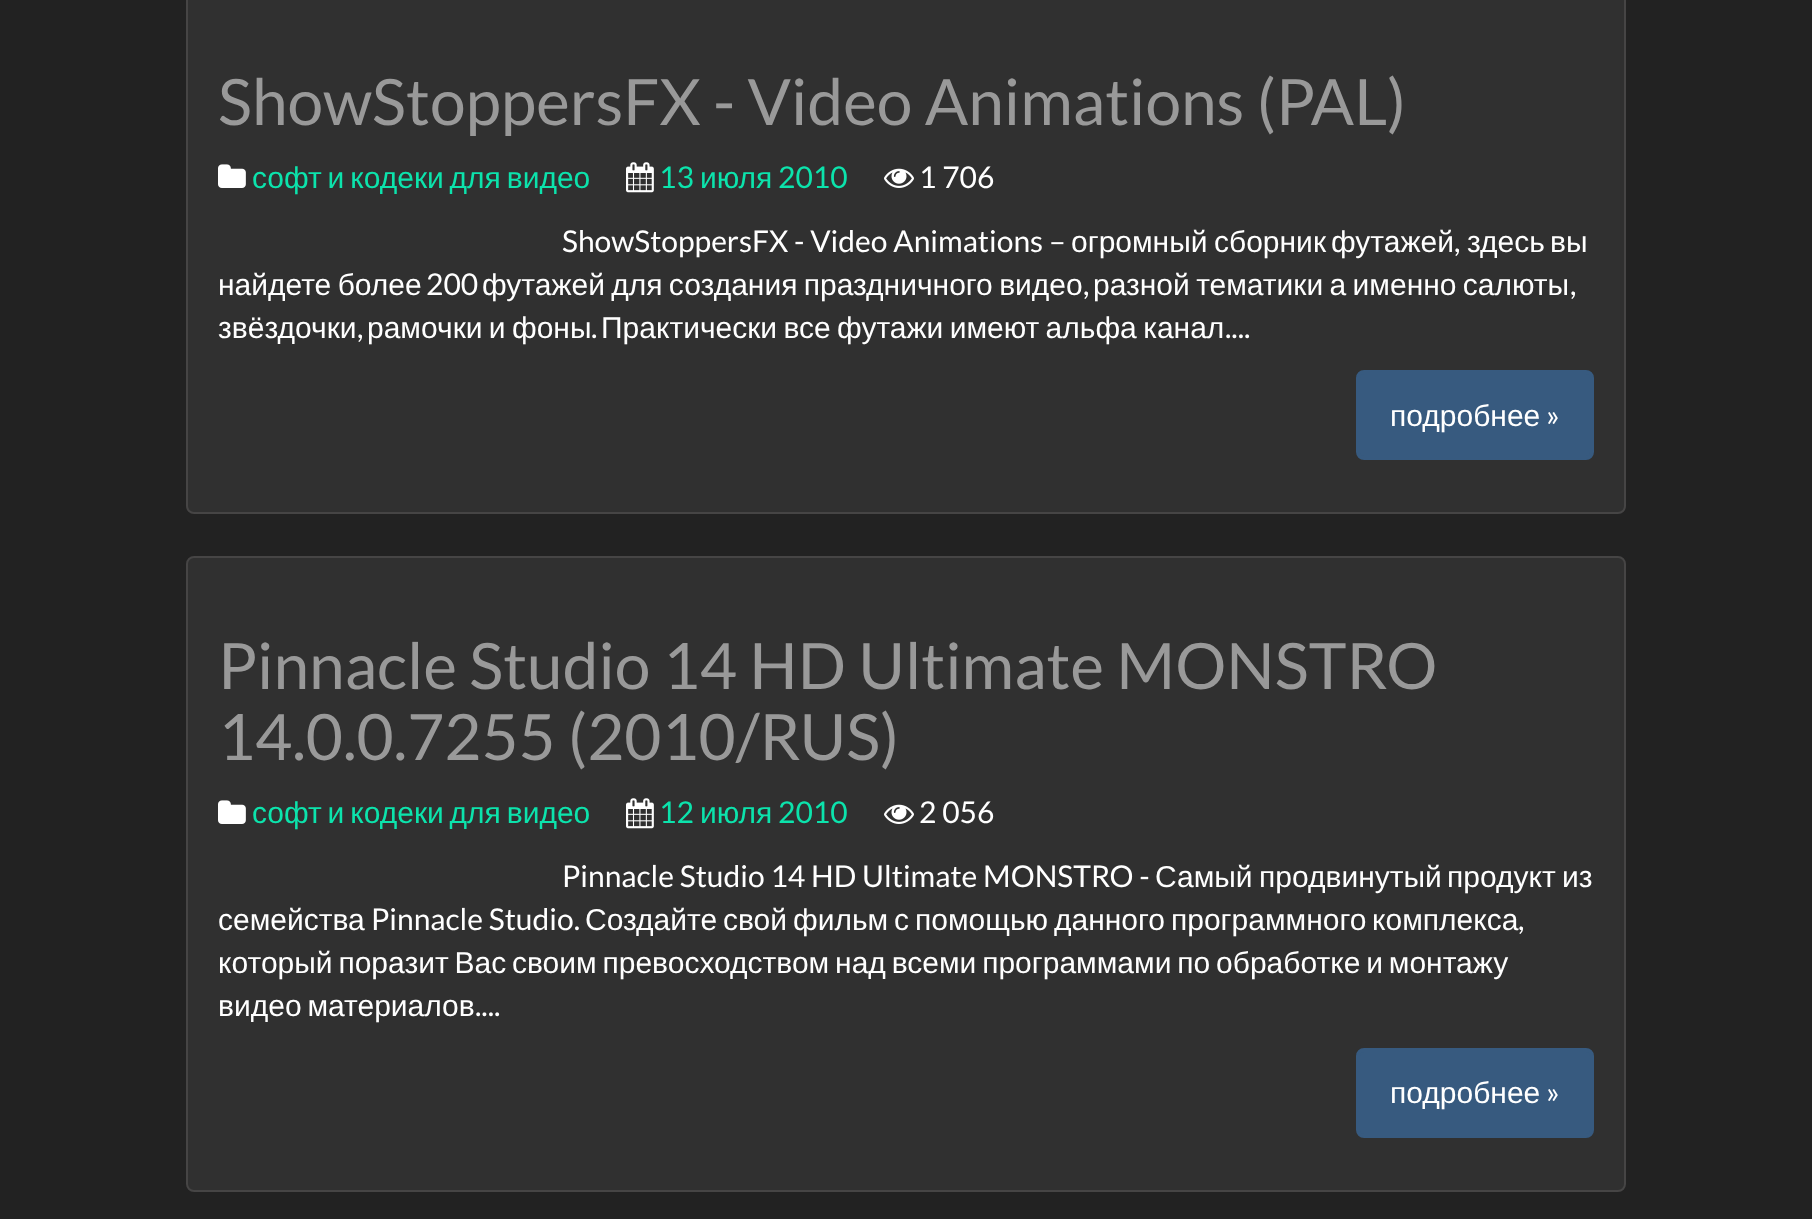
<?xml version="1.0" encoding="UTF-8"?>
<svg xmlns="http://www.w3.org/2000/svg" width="1812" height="1219">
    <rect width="100%" height="100%" fill="#222222"/>
    <rect x="187" y="-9" width="1438" height="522" rx="7" fill="#303030" stroke="#464545" stroke-width="2"/>
    <text x="218" y="125" font-family="Lato" font-size="64" fill="#999999">ShowStoppersFX - Video Animations (PAL)</text>
    <image x="218" y="164" width="28" height="24" href="img_01.png"/>
    <text x="252" y="188" word-spacing="-2.5" font-family="Liberation Sans" font-size="30" fill="#0CE3AC">софт и кодеки для видео</text>
    <image x="626" y="162" width="28" height="31" href="img_02.png"/>
    <text x="659" y="188" font-family="Lato" font-size="30" fill="#0CE3AC">13</text>
    <text x="700" y="188" font-family="Liberation Sans" font-size="30" fill="#0CE3AC">июля</text>
    <text x="778" y="188" font-family="Lato" font-size="30" fill="#0CE3AC">2010</text>
    <image x="884" y="168" width="30" height="20" href="img_03.png"/>
    <text x="919" y="188" font-family="Lato" font-size="30" fill="#FFFFFF">1 706</text>
    <text x="562" y="252" font-family="Lato" font-size="30" fill="#FFFFFF">ShowStoppersFX - Video Animations –</text>
    <text x="1071" y="252" font-family="Liberation Sans" font-size="30" fill="#FFFFFF">огромный</text>
    <text x="1214" y="252" font-family="Liberation Sans" font-size="30" fill="#FFFFFF">сборник</text>
    <text x="1331" y="252" font-family="Liberation Sans" font-size="30" fill="#FFFFFF">футажей</text>
    <text x="1454" y="252" font-family="Lato" font-size="30" fill="#FFFFFF">,</text>
    <text x="1467" y="252" font-family="Liberation Sans" font-size="30" fill="#FFFFFF">здесь</text>
    <text x="1550" y="252" font-family="Liberation Sans" font-size="30" fill="#FFFFFF">вы</text>
    <text x="218" y="295" word-spacing="-2" font-family="Liberation Sans" font-size="30" fill="#FFFFFF">найдете более</text>
    <text x="426" y="295" font-family="Lato" font-size="30" fill="#FFFFFF">200</text>
    <text x="482" y="295" word-spacing="-2" font-family="Liberation Sans" font-size="30" fill="#FFFFFF">футажей для создания праздничного видео</text>
    <text x="1083" y="295" font-family="Lato" font-size="30" fill="#FFFFFF">,</text>
    <text x="1093" y="295" word-spacing="-2" font-family="Liberation Sans" font-size="30" fill="#FFFFFF">разной тематики а именно салюты</text>
    <text x="1570" y="295" font-family="Lato" font-size="30" fill="#FFFFFF">,</text>
    <text x="218" y="338" font-family="Liberation Sans" font-size="30" fill="#FFFFFF">звёздочки</text>
    <text x="357" y="338" font-family="Lato" font-size="30" fill="#FFFFFF">,</text>
    <text x="367" y="338" word-spacing="-2" font-family="Liberation Sans" font-size="30" fill="#FFFFFF">рамочки и фоны</text>
    <text x="591" y="338" font-family="Lato" font-size="30" fill="#FFFFFF">.</text>
    <text x="601" y="338" word-spacing="-2" font-family="Liberation Sans" font-size="30" fill="#FFFFFF">Практически все футажи имеют альфа канал</text>
    <text x="1225" y="338" font-family="Lato" font-size="30" fill="#FFFFFF">....</text>
    <rect x="1358" y="372" width="234" height="86" rx="6" fill="#375A7F" stroke="#375A7F" stroke-width="4"/>
    <text x="1390" y="426" font-family="Liberation Sans" font-size="30" fill="#FFFFFF">подробнее</text>
    <text x="1546" y="426" font-family="Lato" font-size="30" fill="#FFFFFF">»</text>
    <rect x="187" y="557" width="1438" height="634" rx="7" fill="#303030" stroke="#464545" stroke-width="2"/>
    <text font-family="Lato" font-size="64" fill="#999999">
        <tspan x="218" y="689">Pinnacle Studio 14 HD Ultimate MONSTRO</tspan>
        <tspan x="218" y="760">14.0.0.7255 (2010/RUS)</tspan>
    </text>
    <image x="218" y="800" width="28" height="24" href="img_01.png"/>
    <text x="252" y="823" word-spacing="-2.5" font-family="Liberation Sans" font-size="30" fill="#0CE3AC">софт и кодеки для видео</text>
    <image x="626" y="798" width="28" height="31" href="img_02.png"/>
    <text x="659" y="823" font-family="Lato" font-size="30" fill="#0CE3AC">12</text>
    <text x="700" y="823" font-family="Liberation Sans" font-size="30" fill="#0CE3AC">июля</text>
    <text x="778" y="823" font-family="Lato" font-size="30" fill="#0CE3AC">2010</text>
    <image x="884" y="804" width="30" height="20" href="img_03.png"/>
    <text x="919" y="823" font-family="Lato" font-size="30" fill="#FFFFFF">2 056</text>
    <text x="562" y="887" font-family="Lato" font-size="30" fill="#FFFFFF">Pinnacle Studio 14 HD Ultimate MONSTRO -</text>
    <text x="1155" y="887" font-family="Liberation Sans" font-size="30" fill="#FFFFFF">Самый</text>
    <text x="1259" y="887" font-family="Liberation Sans" font-size="30" fill="#FFFFFF">продвинутый</text>
    <text x="1447" y="887" font-family="Liberation Sans" font-size="30" fill="#FFFFFF">продукт</text>
    <text x="1562" y="887" font-family="Liberation Sans" font-size="30" fill="#FFFFFF">из</text>
    <text x="218" y="930" font-family="Liberation Sans" font-size="30" fill="#FFFFFF">семейства</text>
    <text x="371" y="930" font-family="Lato" font-size="30" fill="#FFFFFF">Pinnacle Studio.</text>
    <text x="585" y="930" font-family="Liberation Sans" font-size="30" fill="#FFFFFF">Создайте</text>
    <text x="723" y="930" font-family="Liberation Sans" font-size="30" fill="#FFFFFF">свой</text>
    <text x="793" y="930" font-family="Liberation Sans" font-size="30" fill="#FFFFFF">фильм</text>
    <text x="894" y="930" font-family="Liberation Sans" font-size="30" fill="#FFFFFF">с</text>
    <text x="915" y="930" font-family="Liberation Sans" font-size="30" fill="#FFFFFF">помощью</text>
    <text x="1054" y="930" font-family="Liberation Sans" font-size="30" fill="#FFFFFF">данного</text>
    <text x="1171" y="930" font-family="Liberation Sans" font-size="30" fill="#FFFFFF">программного</text>
    <text x="1372" y="930" font-family="Liberation Sans" font-size="30" fill="#FFFFFF">комплекса</text>
    <text x="1518" y="930" font-family="Lato" font-size="30" fill="#FFFFFF">,</text>
    <text font-family="Liberation Sans" font-size="30" fill="#FFFFFF">
        <tspan x="218" y="973" word-spacing="-2.5">который поразит Вас своим превосходством над всеми программами по обработке и монтажу</tspan>
        <tspan x="218" y="1016" word-spacing="-2.5">видео материалов</tspan>
    </text>
    <text x="475" y="1016" font-family="Lato" font-size="30" fill="#FFFFFF">....</text>
    <rect x="1358" y="1050" width="234" height="86" rx="6" fill="#375A7F" stroke="#375A7F" stroke-width="4"/>
    <text x="1390" y="1103" font-family="Liberation Sans" font-size="30" fill="#FFFFFF">подробнее</text>
    <text x="1546" y="1103" font-family="Lato" font-size="30" fill="#FFFFFF">»</text>
</svg>
